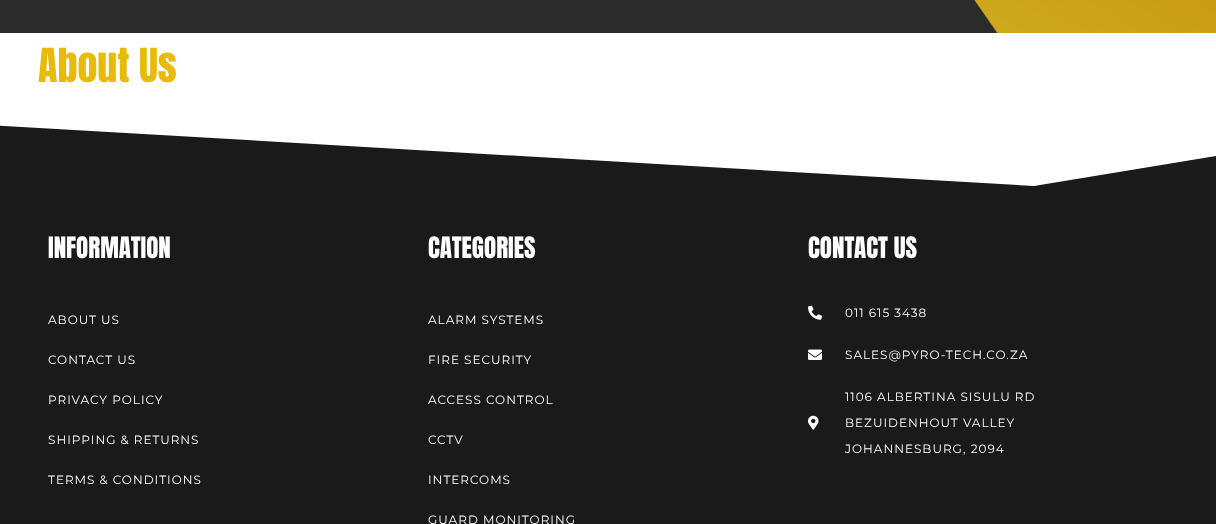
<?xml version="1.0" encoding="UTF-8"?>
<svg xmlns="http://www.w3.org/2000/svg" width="1216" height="524">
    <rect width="100%" height="100%" fill="#FFFFFF"/>
    <rect x="0" y="0" width="1216" height="33" fill="#2B2B2B"/>
    <image x="974" y="0" width="242" height="33" href="img_01.png"/>
    <text x="38" y="82" font-family="Anton" font-size="40" fill="#E8BA09">About Us</text>
    <rect x="0" y="125" width="1216" height="399" fill="#1A1A1A"/>
    <path d="M 1034 186 L 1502 109 V 104 H -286 V 109 Z" fill="#FFFFFF"/>
    <text x="48" y="258" font-family="Anton" font-size="25" fill="#FFFFFF">INFORMATION</text>
    <text x="48" y="324" font-family="Montserrat" font-size="12" letter-spacing="1" fill="#FFFFFF">ABOUT US</text>
    <text x="48" y="364" font-family="Montserrat" font-size="12" letter-spacing="1" fill="#FFFFFF">CONTACT US</text>
    <text x="48" y="404" font-family="Montserrat" font-size="12" letter-spacing="1" fill="#FFFFFF">PRIVACY POLICY</text>
    <text x="48" y="444" font-family="Montserrat" font-size="12" letter-spacing="1" fill="#FFFFFF">SHIPPING &amp; RETURNS</text>
    <text x="48" y="484" font-family="Montserrat" font-size="12" letter-spacing="1" fill="#FFFFFF">TERMS &amp; CONDITIONS</text>
    <text x="428" y="258" font-family="Anton" font-size="25" fill="#FFFFFF">CATEGORIES</text>
    <text x="428" y="324" font-family="Montserrat" font-size="12" letter-spacing="1" fill="#FFFFFF">ALARM SYSTEMS</text>
    <text x="428" y="364" font-family="Montserrat" font-size="12" letter-spacing="1" fill="#FFFFFF">FIRE SECURITY</text>
    <text x="428" y="404" font-family="Montserrat" font-size="12" letter-spacing="1" fill="#FFFFFF">ACCESS CONTROL</text>
    <text x="428" y="444" font-family="Montserrat" font-size="12" letter-spacing="1" fill="#FFFFFF">CCTV</text>
    <text x="428" y="484" font-family="Montserrat" font-size="12" letter-spacing="1" fill="#FFFFFF">INTERCOMS</text>
    <text x="428" y="524" font-family="Montserrat" font-size="12" letter-spacing="1" fill="#FFFFFF">GUARD MONITORING</text>
    <text x="808" y="258" font-family="Anton" font-size="25" fill="#FFFFFF">CONTACT US</text>
    <image x="808" y="305" width="14" height="15" href="img_02.png"/>
    <text x="845" y="317" font-family="Montserrat" font-size="12" letter-spacing="1" fill="#FFFFFF">011 615 3438</text>
    <image x="808" y="349" width="14" height="11" href="img_03.png"/>
    <text x="845" y="359" font-family="Montserrat" font-size="12" letter-spacing="1" fill="#FFFFFF">SALES@PYRO-TECH.CO.ZA</text>
    <image x="808" y="415" width="11" height="15" href="img_04.png"/>
    <text x="845" y="401" font-family="Montserrat" font-size="12" letter-spacing="1" fill="#FFFFFF">1106 ALBERTINA SISULU RD</text>
    <text x="845" y="427" font-family="Montserrat" font-size="12" letter-spacing="1" fill="#FFFFFF">BEZUIDENHOUT VALLEY</text>
    <text x="845" y="453" font-family="Montserrat" font-size="12" letter-spacing="1" fill="#FFFFFF">JOHANNESBURG, 2094</text>
</svg>
